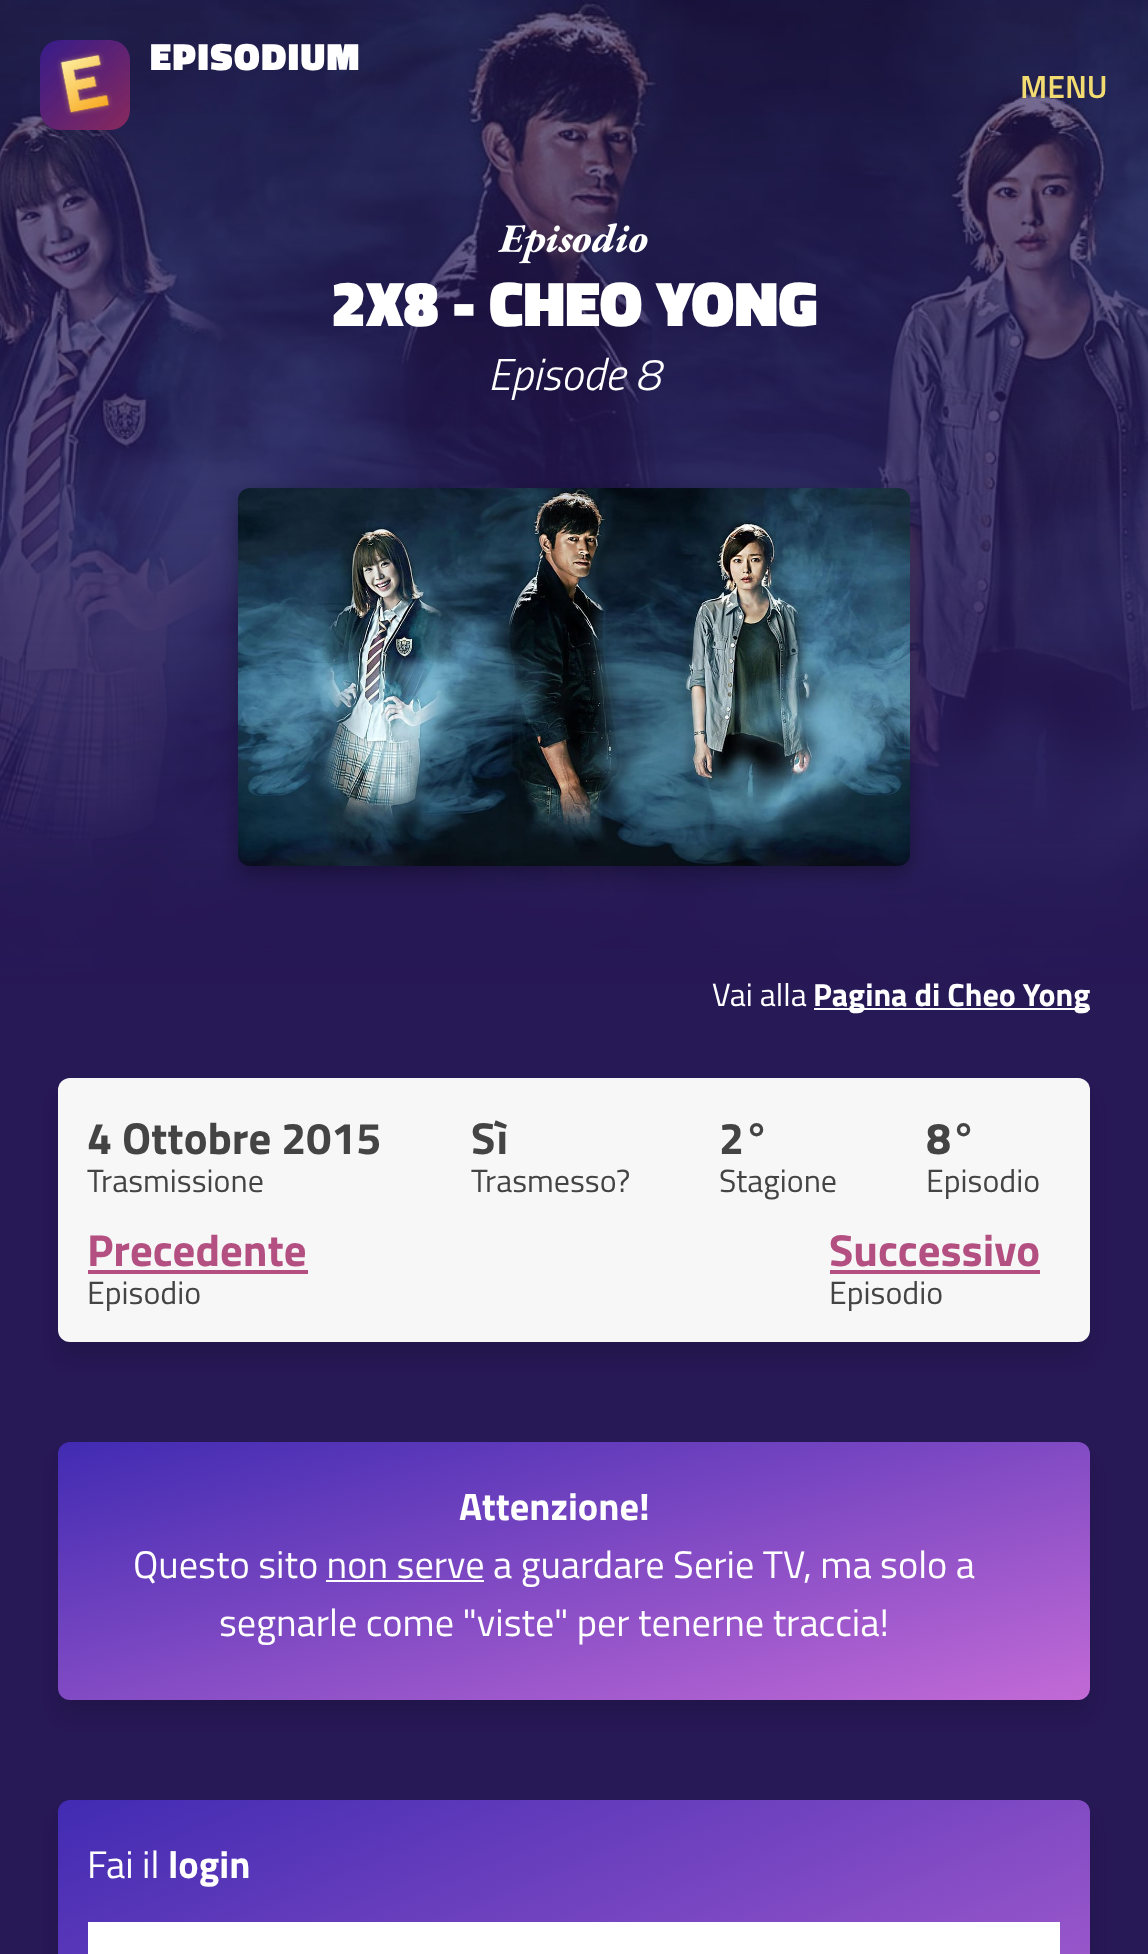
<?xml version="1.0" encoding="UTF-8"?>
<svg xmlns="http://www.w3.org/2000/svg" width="1148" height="1954">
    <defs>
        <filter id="blur1" x="-50%" y="-200%" width="200%" height="500%"><feGaussianBlur stdDeviation="10"/></filter>
        <linearGradient id="g1" gradientUnits="userSpaceOnUse" x1="513" y1="1328" x2="635" y2="1814"><stop offset="0" stop-color="#412BB2"/><stop offset="1" stop-color="#C26AD6"/></linearGradient>
        <linearGradient id="g2" gradientUnits="userSpaceOnUse" x1="421" y1="1649" x2="727" y2="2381"><stop offset="0" stop-color="#412BB2"/><stop offset="1" stop-color="#C26AD6"/></linearGradient>
    </defs>
    <rect width="100%" height="100%" fill="#271856"/>
    <image x="0" y="0" width="1148" height="1000" href="img_02.png"/>
    <image x="40" y="40" width="90" height="90" href="img_01.png"/>
    <text x="150" y="70" font-family="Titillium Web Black" font-size="38.4" font-weight="900" letter-spacing="1.5" fill="#FFFFFF">EPISODIUM</text>
    <text x="1020" y="98" font-family="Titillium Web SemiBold" font-size="32" font-weight="600" fill="#F2DB71">MENU</text>
    <image x="498" y="223" width="150" height="41" href="img_03.png"/>
    <text x="331" y="326" font-family="Titillium Web Black" font-size="64" font-weight="900" fill="#FFFFFF">2X8 - CHEO YONG</text>
    <text x="488" y="390" font-family="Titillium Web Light" font-size="44.75" font-weight="300" font-style="italic" fill="#FFFFFF">Episode 8</text>
    <rect x="238" y="496" width="672" height="378" rx="12" fill="#000000" fill-opacity="0.3" filter="url(#blur1)"/>
    <image x="238" y="488" width="672" height="378" href="img_04.png"/>
    <text x="712" y="1006" font-family="Titillium Web" font-size="32" fill="#FFFFFF">Vai alla</text>
    <rect x="814" y="1008" width="276" height="2" fill="#FFFFFF"/>
    <text x="813" y="1006" font-family="Titillium Web" font-size="32" font-weight="700" fill="#FFFFFF">Pagina di Cheo Yong</text>
    <rect x="58" y="1094" width="1032" height="264" rx="12" fill="#000000" fill-opacity="0.13" filter="url(#blur1)"/>
    <rect x="58" y="1078" width="1032" height="264" rx="12" fill="#F7F7F7"/>
    <text x="87" y="1154" font-family="Titillium Web" font-size="44.75" font-weight="700" fill="#444444">4 Ottobre 2015</text>
    <text x="87" y="1192" font-family="Titillium Web" font-size="32" fill="#444444">Trasmissione</text>
    <text x="471" y="1154" font-family="Titillium Web" font-size="44.75" font-weight="700" fill="#444444">Sì</text>
    <text x="471" y="1192" font-family="Titillium Web" font-size="32" fill="#444444">Trasmesso?</text>
    <text x="719" y="1154" font-family="Titillium Web" font-size="44.75" font-weight="700" fill="#444444">2°</text>
    <text x="719" y="1192" font-family="Titillium Web" font-size="32" fill="#444444">Stagione</text>
    <text x="926" y="1154" font-family="Titillium Web" font-size="44.75" font-weight="700" fill="#444444">8°</text>
    <text x="926" y="1192" font-family="Titillium Web" font-size="32" fill="#444444">Episodio</text>
    <text x="87" y="1266" font-family="Titillium Web" font-size="44.75" font-weight="700" fill="#B35081">Precedente</text>
    <rect x="88" y="1270" width="220" height="4" fill="#B35081"/>
    <text x="87" y="1304" font-family="Titillium Web" font-size="32" fill="#444444">Episodio</text>
    <text x="829" y="1266" font-family="Titillium Web" font-size="44.75" font-weight="700" fill="#B35081">Successivo</text>
    <rect x="830" y="1270" width="210" height="4" fill="#B35081"/>
    <text x="829" y="1304" font-family="Titillium Web" font-size="32" fill="#444444">Episodio</text>
    <rect x="58" y="1458" width="1032" height="258" rx="12" fill="#000000" fill-opacity="0.13" filter="url(#blur1)"/>
    <rect x="58" y="1442" width="1032" height="258" rx="12" fill="url(#g1)"/>
    <text x="459" y="1520" font-family="Titillium Web" font-size="38.4" font-weight="700" fill="#FFFFFF">Attenzione!</text>
    <text x="133" y="1578" font-family="Titillium Web" font-size="38.4" fill="#FFFFFF">Questo sito non serve a guardare Serie TV, ma solo a</text>
    <rect x="326" y="1580" width="158" height="2" fill="#FFFFFF"/>
    <text x="219" y="1636" font-family="Titillium Web" font-size="38.4" fill="#FFFFFF">segnarle come "viste" per tenerne traccia!</text>
    <rect x="58" y="1816" width="1032" height="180" rx="12" fill="#000000" fill-opacity="0.13" filter="url(#blur1)"/>
    <rect x="58" y="1800" width="1032" height="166" rx="12" fill="url(#g2)"/>
    <text x="87" y="1878" font-family="Titillium Web" font-size="38.4" fill="#FFFFFF">Fai il</text>
    <text x="168" y="1878" font-family="Titillium Web" font-size="38.4" font-weight="700" fill="#FFFFFF">login</text>
    <rect x="88" y="1922" width="972" height="32" fill="#FFFFFF"/>
</svg>
